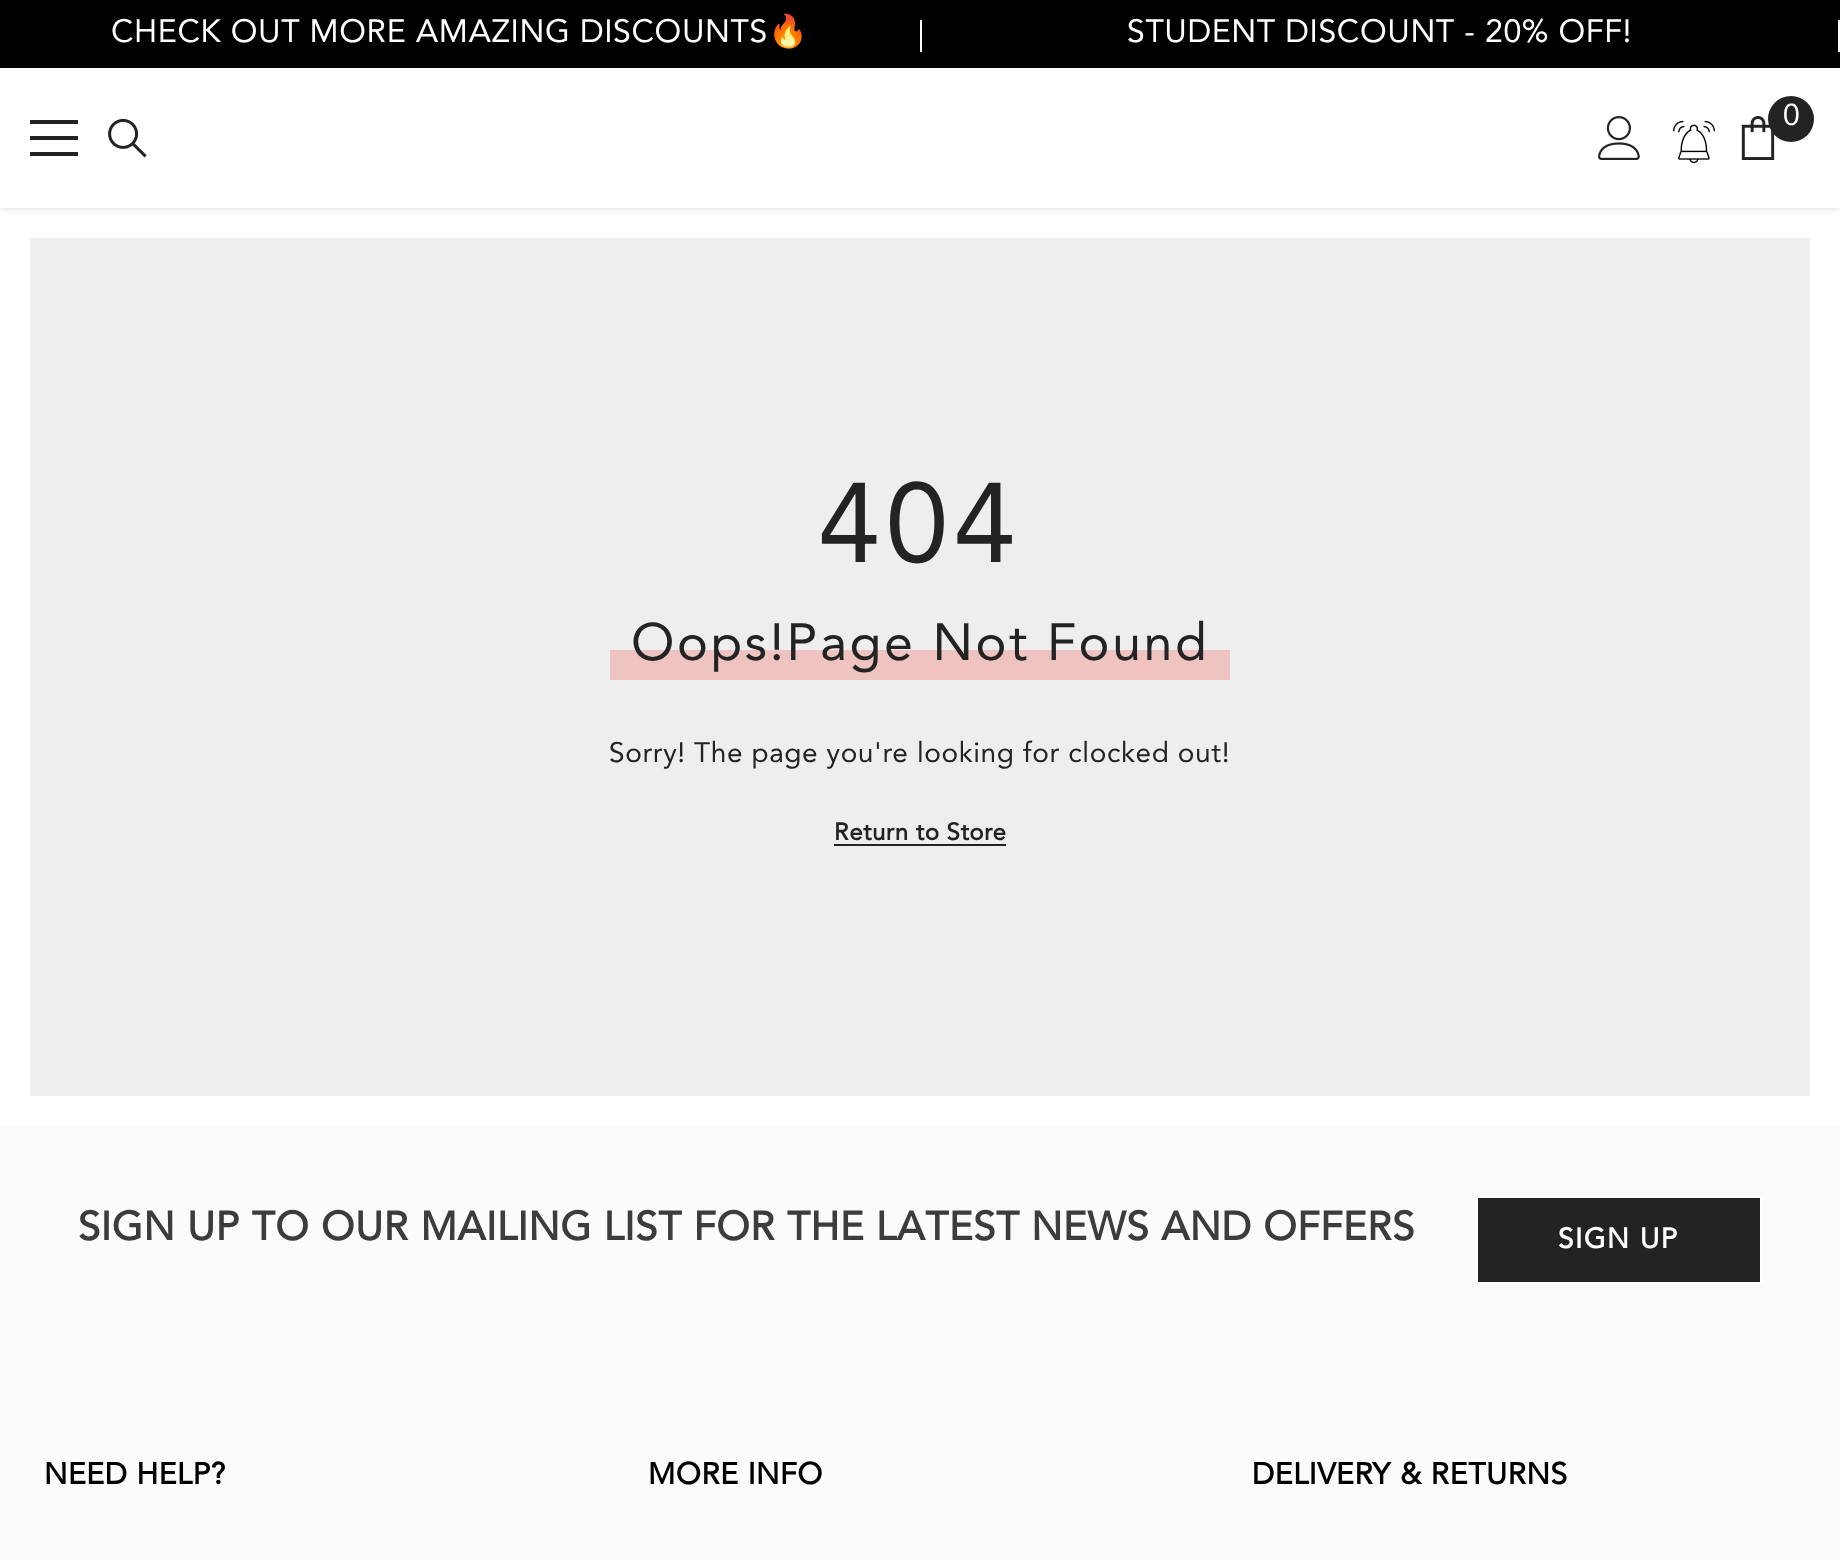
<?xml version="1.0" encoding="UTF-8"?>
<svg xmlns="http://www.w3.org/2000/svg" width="1840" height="1560">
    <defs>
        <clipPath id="clip1"><path d="M 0 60 H 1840 V 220 H 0 Z M 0 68 H 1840 V 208 H 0 Z" clip-rule="evenodd"/></clipPath>
        <filter id="blur1" x="-50%" y="-200%" width="200%" height="500%"><feGaussianBlur stdDeviation="3"/></filter>
    </defs>
    <rect width="100%" height="100%" fill="#FFFFFF"/>
    <rect x="0" y="0" width="1840" height="68" fill="#000000"/>
    <text x="111" y="42" font-family="Avenir" font-size="32" letter-spacing="0.6" fill="#FFFFFF">CHECK OUT MORE AMAZING DISCOUNTS</text>
    <text x="768" y="42" font-family="Noto Color Emoji" font-size="32" letter-spacing="0.6" fill="#FFFFFF">🔥</text>
    <rect x="920" y="20" width="2" height="32" fill="#FFFFFF"/>
    <text x="1127" y="42" font-family="Avenir" font-size="32" letter-spacing="0.6" fill="#FFFFFF">STUDENT DISCOUNT - 20% OFF!</text>
    <rect x="1838" y="20" width="2" height="32" fill="#FFFFFF"/>
    <g clip-path="url(#clip1)">
        <rect x="0" y="70" width="1840" height="140" fill="#000000" fill-opacity="0.1" filter="url(#blur1)"/>
    </g>
    <rect x="30" y="136" width="48" height="4" fill="#232323"/>
    <rect x="30" y="120" width="48" height="4" fill="#232323"/>
    <rect x="30" y="152" width="48" height="4" fill="#232323"/>
    <image x="108" y="118" width="39" height="40" href="img_01.png"/>
    <image x="1598" y="116" width="42" height="44" href="img_02.png"/>
    <image x="1673" y="120" width="42" height="44" href="img_03.png"/>
    <image x="1741" y="116" width="34" height="44" href="img_04.png"/>
    <circle cx="1791" cy="119" r="23" fill="#232323"/>
    <text x="1783" y="125" font-family="Avenir" font-size="30" fill="#FFFFFF">0</text>
    <rect x="30" y="238" width="1780" height="858" fill="#EEEEEE"/>
    <text x="818" y="562" font-family="Avenir" font-size="112" letter-spacing="5.5" fill="#232323">404</text>
    <rect x="610" y="650" width="620" height="30" fill="#EFC3C0"/>
    <text x="631" y="660" font-family="Avenir" font-size="52" letter-spacing="2.6" fill="#232323">Oops!Page Not Found</text>
    <text x="609" y="762" font-family="Avenir" font-size="28" letter-spacing="0.6" fill="#232323">Sorry! The page you're looking for clocked out!</text>
    <text x="834" y="840" font-family="Avenir" font-size="24" font-weight="700" letter-spacing="0.5" fill="#232323">Return to Store</text>
    <rect x="834" y="844" width="172" height="2" fill="#232323"/>
    <rect x="0" y="1126" width="1840" height="434" fill="#FBFBFB"/>
    <text x="78" y="1240" font-family="Avenir" font-size="40" font-weight="700" letter-spacing="0.6" fill="#3C3C3C">SIGN UP TO OUR MAILING LIST FOR THE LATEST NEWS AND OFFERS</text>
    <rect x="1477" y="1197" width="284" height="86" fill="#232323" stroke="#FFFFFF" stroke-width="2"/>
    <text x="1558" y="1248" font-family="Avenir" font-size="28" font-weight="700" letter-spacing="1.5" fill="#FFFFFF">SIGN UP</text>
    <text x="44" y="1484" font-family="Avenir" font-size="30" font-weight="700" letter-spacing="0.6" fill="#000000">NEED HELP?</text>
    <text x="648" y="1484" font-family="Avenir" font-size="30" font-weight="700" letter-spacing="0.6" fill="#000000">MORE INFO</text>
    <text x="1252" y="1484" font-family="Avenir" font-size="30" font-weight="700" letter-spacing="0.6" fill="#000000">DELIVERY &amp; RETURNS</text>
</svg>
